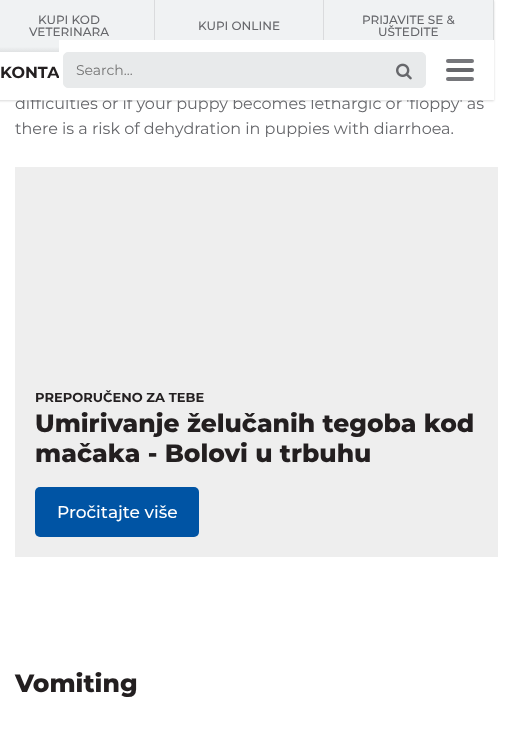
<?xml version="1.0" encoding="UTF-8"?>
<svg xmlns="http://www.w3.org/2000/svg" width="509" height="730">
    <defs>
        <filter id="blur1" x="-50%" y="-200%" width="200%" height="500%"><feGaussianBlur stdDeviation="1"/></filter>
        <linearGradient id="g1" gradientUnits="userSpaceOnUse" x1="70" y1="0" x2="70" y2="52"><stop offset="0.9" stop-color="#F0F2F3"/><stop offset="1" stop-color="#E0E2E3"/></linearGradient>
        <linearGradient id="g2" gradientUnits="userSpaceOnUse" x1="239" y1="0" x2="239" y2="52"><stop offset="0.9" stop-color="#F0F2F3"/><stop offset="1" stop-color="#E0E2E3"/></linearGradient>
        <linearGradient id="g3" gradientUnits="userSpaceOnUse" x1="409" y1="0" x2="409" y2="52"><stop offset="0.9" stop-color="#F0F2F3"/><stop offset="1" stop-color="#E0E2E3"/></linearGradient>
        <linearGradient id="g4" gradientUnits="userSpaceOnUse" x1="409" y1="0" x2="409" y2="52"><stop offset="0.9" stop-color="#DADCDD"/><stop offset="1" stop-color="#D5D7D8"/></linearGradient>
    </defs>
    <rect width="100%" height="100%" fill="#FFFFFF"/>
    <rect x="-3" y="1" width="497" height="100" fill="#000000" fill-opacity="0.15" filter="url(#blur1)"/>
    <text x="15" y="109" font-family="Montserrat" font-size="16" fill="#66676B">difficulties or if your puppy becomes lethargic or 'floppy' as</text>
    <rect x="0" y="52" width="59" height="48" fill="#FFFFFF"/>
    <rect x="0" y="0" width="155" height="52" fill="url(#g1)"/>
    <rect x="154" y="0" width="1" height="40" fill="#D0D2D3" fill-opacity="0.7"/>
    <text x="38" y="24" font-family="Montserrat" font-size="12" font-weight="500" fill="#66676B">KUPI KOD</text>
    <text x="29" y="36" font-family="Montserrat" font-size="12" font-weight="500" fill="#66676B">VETERINARA</text>
    <rect x="155" y="0" width="169" height="40" fill="url(#g2)"/>
    <rect x="323" y="0" width="1" height="40" fill="#D0D2D3" fill-opacity="0.7"/>
    <text x="198" y="30" font-family="Montserrat" font-size="12" font-weight="500" fill="#66676B">KUPI ONLINE</text>
    <rect x="324" y="0" width="169" height="40" fill="url(#g3)"/>
    <rect x="493" y="0" width="1" height="40" fill="url(#g4)"/>
    <text x="362" y="24" font-family="Montserrat" font-size="12" font-weight="500" fill="#66676B">PRIJAVITE SE &amp;</text>
    <text x="378" y="36" font-family="Montserrat" font-size="12" font-weight="500" fill="#66676B">UŠTEDITE</text>
    <text x="0" y="78" font-family="Montserrat" font-size="16" font-weight="700" fill="#231F20">KONTA</text>
    <rect x="59" y="40" width="435" height="60" fill="#FFFFFF"/>
    <rect x="63.5" y="52.5" width="362" height="35" rx="4.5" fill="#E8EAEB" stroke="#E8EAEB"/>
    <text x="76" y="75" font-family="Montserrat" font-size="14" fill="#757575">Search...</text>
    <image x="396" y="63" width="16" height="17" href="img_01.png"/>
    <rect x="446" y="68" width="28" height="4" rx="2" fill="#66676B"/>
    <rect x="446" y="59" width="28" height="4" rx="2" fill="#76777B"/>
    <rect x="446" y="77" width="28" height="4" rx="2" fill="#76777B"/>
    <text x="15" y="134" font-family="Montserrat" font-size="16" fill="#66676B">there is a risk of dehydration in puppies with diarrhoea.</text>
    <rect x="15" y="167" width="483" height="390" fill="#EEEEEE"/>
    <text x="35" y="402" font-family="Montserrat" font-size="13" font-weight="700" fill="#231F20">PREPORUČENO ZA TEBE</text>
    <text font-family="Montserrat" font-size="25" font-weight="800" fill="#231F20">
        <tspan x="35" y="432">Umirivanje želučanih tegoba kod</tspan>
        <tspan x="35" y="462">mačaka - Bolovi u trbuhu</tspan>
    </text>
    <rect x="35" y="487" width="164" height="50" rx="5" fill="#0054A4"/>
    <text x="57" y="518" font-family="Montserrat" font-size="17" font-weight="500" fill="#FFFFFF">Pročitajte više</text>
    <text x="15" y="692" font-family="Montserrat" font-size="25" font-weight="800" fill="#231F20">Vomiting</text>
</svg>
